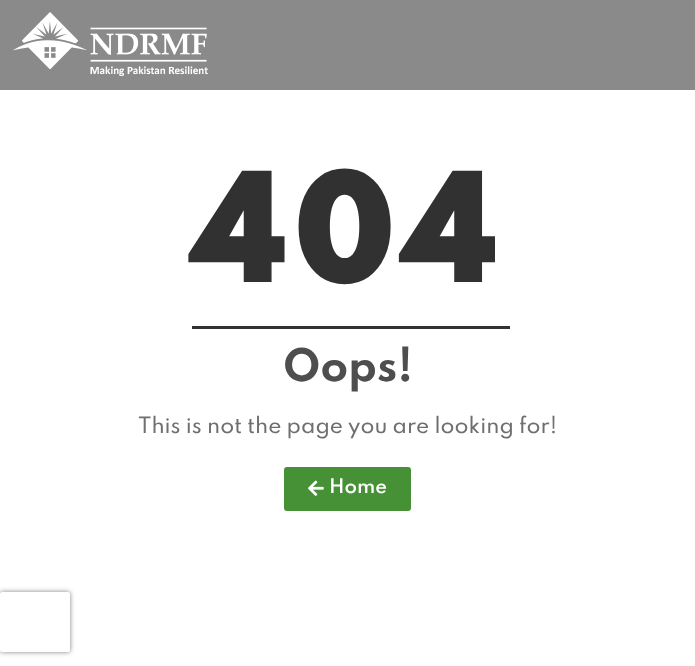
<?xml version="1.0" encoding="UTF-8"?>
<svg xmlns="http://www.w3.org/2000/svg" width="695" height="666">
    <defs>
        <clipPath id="clip1"><path d="M 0 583 H 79 V 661 H 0 Z M 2 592 H 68 C 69 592 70 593 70 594 V 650 C 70 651 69 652 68 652 H 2 C 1 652 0 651 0 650 V 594 C 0 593 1 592 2 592 Z" clip-rule="evenodd"/></clipPath>
        <filter id="blur1" x="-50%" y="-200%" width="200%" height="500%"><feGaussianBlur stdDeviation="2.5"/></filter>
    </defs>
    <rect width="100%" height="100%" fill="#FFFFFF"/>
    <rect x="0" y="0" width="695" height="90" fill="#8A8A8A"/>
    <image x="13" y="12" width="195" height="65" href="img_01.png"/>
    <text x="190" y="282" font-family="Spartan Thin" font-size="135" font-weight="900" letter-spacing="5" fill="#313131">404</text>
    <rect x="192" y="326" width="318" height="3" fill="#313131"/>
    <text x="283" y="381" font-family="Spartan Thin" font-size="40" font-weight="700" fill="#4E4E4E">Oops!</text>
    <text x="138" y="433" font-family="Spartan Thin" font-size="20" font-weight="500" fill="#6F6F6F">This is not the page you are looking for!</text>
    <rect x="284" y="467" width="127" height="44" rx="3" fill="#469036"/>
    <image x="308" y="480" width="16" height="16" href="img_02.png"/>
    <text x="329" y="493" font-family="Spartan Thin" font-size="18" font-weight="600" fill="#FFFFFF">Home</text>
    <g clip-path="url(#clip1)">
        <rect x="0" y="592" width="70" height="60" rx="2" fill="#808080" filter="url(#blur1)"/>
    </g>
</svg>
